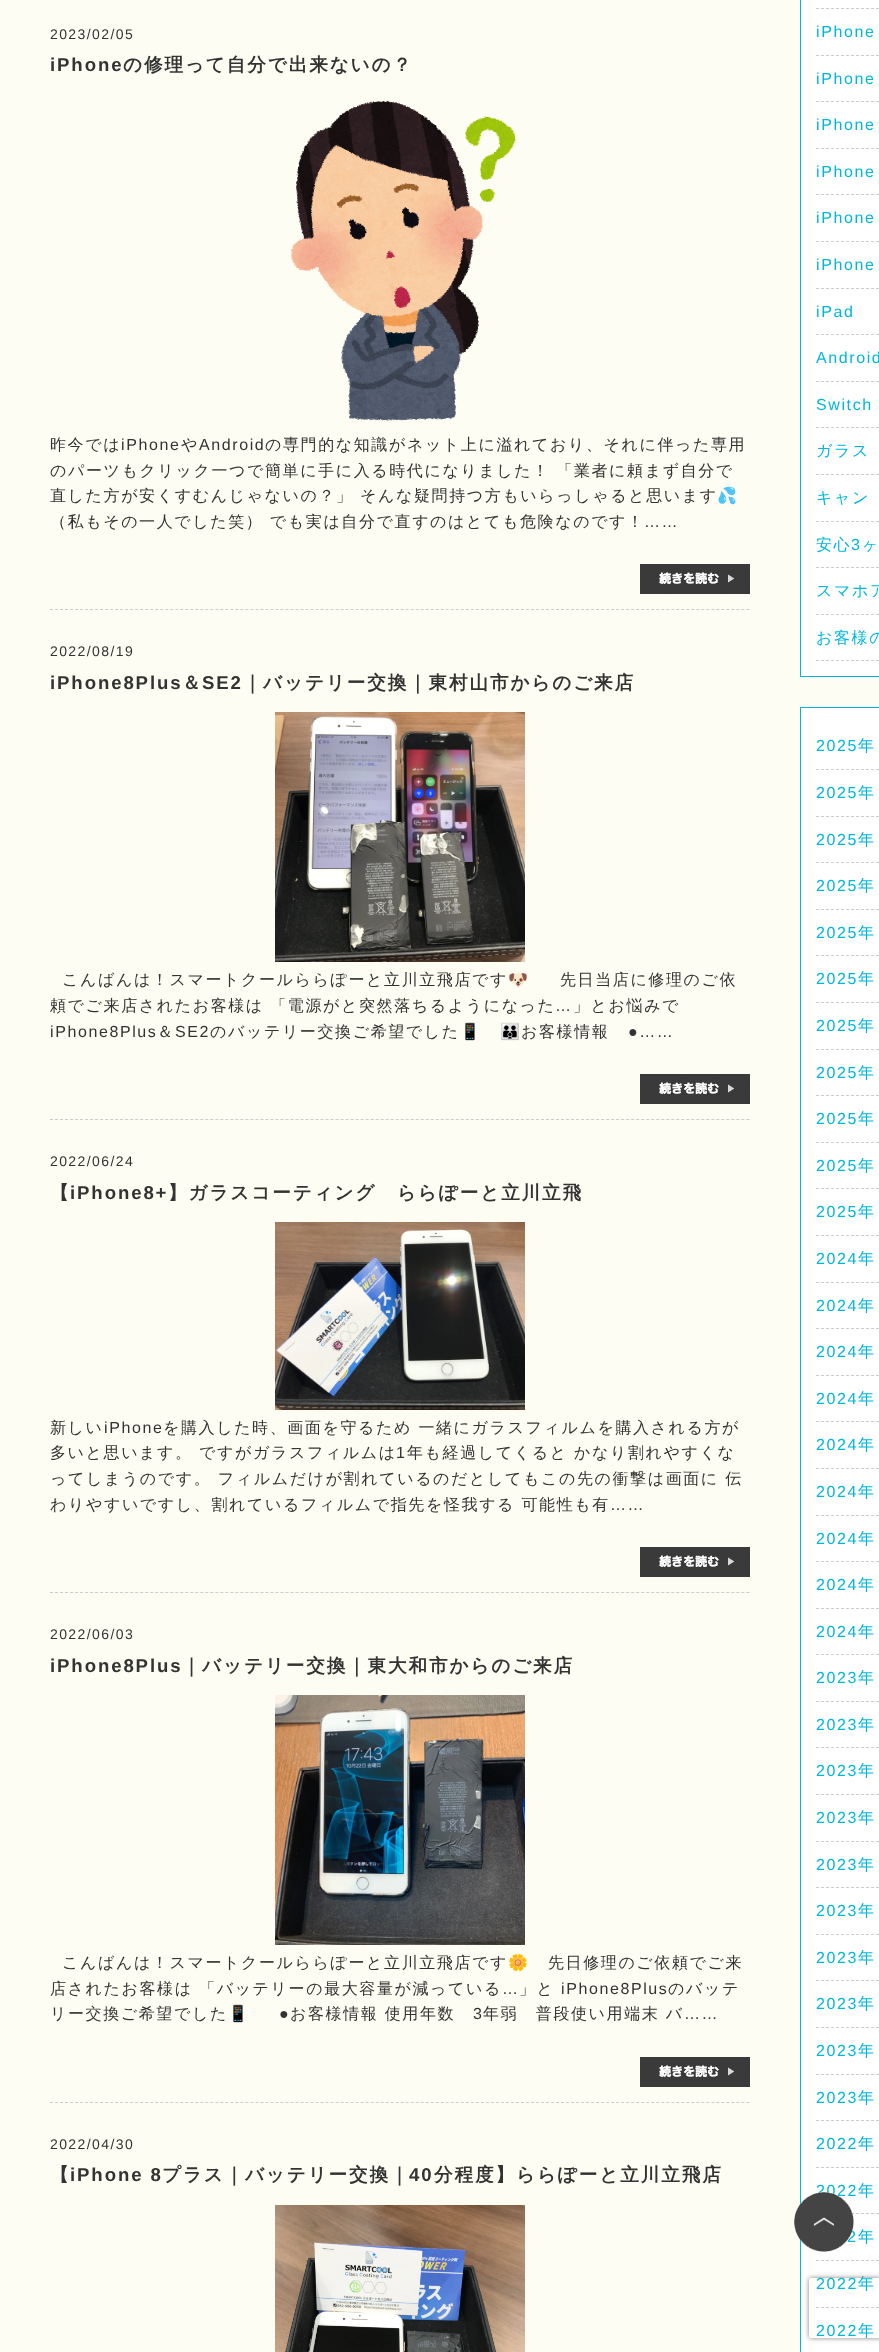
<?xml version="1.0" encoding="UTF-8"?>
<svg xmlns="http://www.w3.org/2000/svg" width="879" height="2352">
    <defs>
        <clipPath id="clip1"><path d="M 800 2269 H 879 V 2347 H 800 Z M 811 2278 H 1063 C 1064 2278 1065 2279 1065 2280 V 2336 C 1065 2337 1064 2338 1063 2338 H 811 C 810 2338 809 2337 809 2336 V 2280 C 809 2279 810 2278 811 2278 Z" clip-rule="evenodd"/></clipPath>
        <filter id="blur1" x="-50%" y="-200%" width="200%" height="500%"><feGaussianBlur stdDeviation="2.5"/></filter>
    </defs>
    <rect width="100%" height="100%" fill="#FDFDF3"/>
    <path d="M 50 609.5 H 750" fill="none" stroke="#CCCCCC" stroke-dasharray="3 2.01"/>
    <text x="50" y="39" font-family="Liberation Sans" font-size="14" letter-spacing="1.4" fill="#333333">2023/02/05</text>
    <text x="50" y="71" font-family="Liberation Sans" font-size="18.6" font-weight="700" letter-spacing="1.9" fill="#333333">iPhone</text>
    <text x="123" y="71" font-family="WenQuanYi Zen Hei" font-size="18.6" font-weight="700" letter-spacing="1.9" fill="#333333">の修理って自分で出来ないの？</text>
    <image x="291" y="100" width="225" height="321" href="img_01.png"/>
    <text x="50" y="450" font-family="WenQuanYi Zen Hei" font-size="16" font-weight="500" letter-spacing="1.6" fill="#333333">昨今では</text>
    <text x="121" y="450" font-family="Liberation Sans" font-size="16" letter-spacing="1.6" fill="#333333">iPhone</text>
    <text x="181" y="450" font-family="WenQuanYi Zen Hei" font-size="16" font-weight="500" letter-spacing="1.6" fill="#333333">や</text>
    <text x="199" y="450" font-family="Liberation Sans" font-size="16" letter-spacing="1.6" fill="#333333">Android</text>
    <text x="265" y="450" font-family="WenQuanYi Zen Hei" font-size="16" font-weight="500" letter-spacing="1.6" fill="#333333">の専門的な知識がネット上に溢れており、それに伴った専用</text>
    <text font-family="WenQuanYi Zen Hei" font-size="16" font-weight="500" letter-spacing="1.6" fill="#333333">
        <tspan x="50" y="476">のパーツもクリック一つで簡単に手に入る時代になりました！ 「業者に頼まず自分で</tspan>
        <tspan x="50" y="501">直した方が安くすむんじゃないの？」 そんな疑問持つ方もいらっしゃると思います</tspan>
    </text>
    <text x="717" y="501" font-family="Noto Color Emoji" font-size="16" letter-spacing="1.6" fill="#333333">💦</text>
    <text x="50" y="527" font-family="WenQuanYi Zen Hei" font-size="16" font-weight="500" letter-spacing="1.6" fill="#333333">（私もその一人でした笑） でも実は自分で直すのはとても危険なのです！</text>
    <text x="644" y="527" font-family="Liberation Sans" font-size="16" letter-spacing="1.6" fill="#333333">……</text>
    <image x="640" y="564" width="110" height="30" href="img_02.png"/>
    <path d="M 50 1119.5 H 750" fill="none" stroke="#CCCCCC" stroke-dasharray="3 2.01"/>
    <text x="50" y="656" font-family="Liberation Sans" font-size="14" letter-spacing="1.4" fill="#333333">2022/08/19</text>
    <text x="50" y="689" font-family="Liberation Sans" font-size="18.6" font-weight="700" letter-spacing="1.9" fill="#333333">iPhone8Plus</text>
    <text x="182" y="689" font-family="WenQuanYi Zen Hei" font-size="18.6" font-weight="700" letter-spacing="1.9" fill="#333333">＆</text>
    <text x="202" y="689" font-family="Liberation Sans" font-size="18.6" font-weight="700" letter-spacing="1.9" fill="#333333">SE2</text>
    <text x="243" y="689" font-family="WenQuanYi Zen Hei" font-size="18.6" font-weight="700" letter-spacing="1.9" fill="#333333">｜バッテリー交換｜東村山市からのご来店</text>
    <image x="275" y="712" width="250" height="250" href="img_03.png"/>
    <text x="62" y="985" font-family="WenQuanYi Zen Hei" font-size="16" font-weight="500" letter-spacing="1.6" fill="#333333">こんばんは！スマートクールららぽーと立川立飛店です</text>
    <text x="508" y="985" font-family="Noto Color Emoji" font-size="16" letter-spacing="1.6" fill="#333333">🐶</text>
    <text x="560" y="985" font-family="WenQuanYi Zen Hei" font-size="16" font-weight="500" letter-spacing="1.6" fill="#333333">先日当店に修理のご依</text>
    <text x="50" y="1011" font-family="WenQuanYi Zen Hei" font-size="16" font-weight="500" letter-spacing="1.6" fill="#333333">頼でご来店されたお客様は 「電源がと突然落ちるようになった</text>
    <text x="555" y="1011" font-family="Liberation Sans" font-size="16" letter-spacing="1.6" fill="#333333">…</text>
    <text x="573" y="1011" font-family="WenQuanYi Zen Hei" font-size="16" font-weight="500" letter-spacing="1.6" fill="#333333">」とお悩みで</text>
    <text x="50" y="1037" font-family="Liberation Sans" font-size="16" letter-spacing="1.6" fill="#333333">iPhone8Plus</text>
    <text x="157" y="1037" font-family="WenQuanYi Zen Hei" font-size="16" font-weight="500" letter-spacing="1.6" fill="#333333">＆</text>
    <text x="175" y="1037" font-family="Liberation Sans" font-size="16" letter-spacing="1.6" fill="#333333">SE2</text>
    <text x="210" y="1037" font-family="WenQuanYi Zen Hei" font-size="16" font-weight="500" letter-spacing="1.6" fill="#333333">のバッテリー交換ご希望でした</text>
    <text x="460" y="1037" font-family="Noto Color Emoji" font-size="16" letter-spacing="1.6" fill="#333333">📱</text>
    <text x="500" y="1037" font-family="Noto Color Emoji" font-size="16" letter-spacing="1.6" fill="#333333">👪</text>
    <text x="521" y="1037" font-family="WenQuanYi Zen Hei" font-size="16" font-weight="500" letter-spacing="1.6" fill="#333333">お客様情報</text>
    <text x="628" y="1037" font-family="Liberation Sans" font-size="16" letter-spacing="1.6" fill="#333333">●……</text>
    <image x="640" y="1074" width="110" height="30" href="img_02.png"/>
    <path d="M 50 1592.5 H 750" fill="none" stroke="#CCCCCC" stroke-dasharray="3 2.01"/>
    <text x="50" y="1166" font-family="Liberation Sans" font-size="14" letter-spacing="1.4" fill="#333333">2022/06/24</text>
    <text x="50" y="1199" font-family="WenQuanYi Zen Hei" font-size="18.6" font-weight="700" letter-spacing="1.9" fill="#333333">【</text>
    <text x="70" y="1199" font-family="Liberation Sans" font-size="18.6" font-weight="700" letter-spacing="1.9" fill="#333333">iPhone8+</text>
    <text x="168" y="1199" font-family="WenQuanYi Zen Hei" font-size="18.6" font-weight="700" letter-spacing="1.9" fill="#333333">】ガラスコーティング　ららぽーと立川立飛</text>
    <image x="275" y="1222" width="250" height="188" href="img_04.png"/>
    <text x="50" y="1433" font-family="WenQuanYi Zen Hei" font-size="16" font-weight="500" letter-spacing="1.6" fill="#333333">新しい</text>
    <text x="104" y="1433" font-family="Liberation Sans" font-size="16" letter-spacing="1.6" fill="#333333">iPhone</text>
    <text x="163" y="1433" font-family="WenQuanYi Zen Hei" font-size="16" font-weight="500" letter-spacing="1.6" fill="#333333">を購入した時、画面を守るため 一緒にガラスフィルムを購入される方が</text>
    <text x="50" y="1458" font-family="WenQuanYi Zen Hei" font-size="16" font-weight="500" letter-spacing="1.6" fill="#333333">多いと思います。 ですがガラスフィルムは</text>
    <text x="396" y="1458" font-family="Liberation Sans" font-size="16" letter-spacing="1.6" fill="#333333">1</text>
    <text x="407" y="1458" font-family="WenQuanYi Zen Hei" font-size="16" font-weight="500" letter-spacing="1.6" fill="#333333">年も経過してくると かなり割れやすくな</text>
    <text font-family="WenQuanYi Zen Hei" font-size="16" font-weight="500" letter-spacing="1.6" fill="#333333">
        <tspan x="50" y="1484">ってしまうのです。 フィルムだけが割れているのだとしてもこの先の衝撃は画面に 伝</tspan>
        <tspan x="50" y="1510">わりやすいですし、割れているフィルムで指先を怪我する 可能性も有</tspan>
    </text>
    <text x="610" y="1510" font-family="Liberation Sans" font-size="16" letter-spacing="1.6" fill="#333333">……</text>
    <image x="640" y="1547" width="110" height="30" href="img_02.png"/>
    <path d="M 50 2102.5 H 750" fill="none" stroke="#CCCCCC" stroke-dasharray="3 2.01"/>
    <text x="50" y="1639" font-family="Liberation Sans" font-size="14" letter-spacing="1.4" fill="#333333">2022/06/03</text>
    <text x="50" y="1672" font-family="Liberation Sans" font-size="18.6" font-weight="700" letter-spacing="1.9" fill="#333333">iPhone8Plus</text>
    <text x="182" y="1672" font-family="WenQuanYi Zen Hei" font-size="18.6" font-weight="700" letter-spacing="1.9" fill="#333333">｜バッテリー交換｜東大和市からのご来店</text>
    <image x="275" y="1695" width="250" height="250" href="img_05.png"/>
    <text x="62" y="1968" font-family="WenQuanYi Zen Hei" font-size="16" font-weight="500" letter-spacing="1.6" fill="#333333">こんばんは！スマートクールららぽーと立川立飛店です</text>
    <text x="508" y="1968" font-family="Noto Color Emoji" font-size="16" letter-spacing="1.6" fill="#333333">🌼</text>
    <text x="548" y="1968" font-family="WenQuanYi Zen Hei" font-size="16" font-weight="500" letter-spacing="1.6" fill="#333333">先日修理のご依頼でご来</text>
    <text x="50" y="1994" font-family="WenQuanYi Zen Hei" font-size="16" font-weight="500" letter-spacing="1.6" fill="#333333">店されたお客様は 「バッテリーの最大容量が減っている</text>
    <text x="502" y="1994" font-family="Liberation Sans" font-size="16" letter-spacing="1.6" fill="#333333">…</text>
    <text x="519" y="1994" font-family="WenQuanYi Zen Hei" font-size="16" font-weight="500" letter-spacing="1.6" fill="#333333">」と</text>
    <text x="561" y="1994" font-family="Liberation Sans" font-size="16" letter-spacing="1.6" fill="#333333">iPhone8Plus</text>
    <text x="668" y="1994" font-family="WenQuanYi Zen Hei" font-size="16" font-weight="500" letter-spacing="1.6" fill="#333333">のバッテ</text>
    <text x="50" y="2019" font-family="WenQuanYi Zen Hei" font-size="16" font-weight="500" letter-spacing="1.6" fill="#333333">リー交換ご希望でした</text>
    <text x="228" y="2019" font-family="Noto Color Emoji" font-size="16" letter-spacing="1.6" fill="#333333">📱</text>
    <text x="279" y="2019" font-family="Liberation Sans" font-size="16" letter-spacing="1.6" fill="#333333">●</text>
    <text x="290" y="2019" font-family="WenQuanYi Zen Hei" font-size="16" font-weight="500" letter-spacing="1.6" fill="#333333">お客様情報 使用年数</text>
    <text x="473" y="2019" font-family="Liberation Sans" font-size="16" letter-spacing="1.6" fill="#333333">3</text>
    <text x="483" y="2019" font-family="WenQuanYi Zen Hei" font-size="16" font-weight="500" letter-spacing="1.6" fill="#333333">年弱　普段使い用端末 バ</text>
    <text x="684" y="2019" font-family="Liberation Sans" font-size="16" letter-spacing="1.6" fill="#333333">……</text>
    <image x="640" y="2057" width="110" height="30" href="img_02.png"/>
    <text x="50" y="2149" font-family="Liberation Sans" font-size="14" letter-spacing="1.4" fill="#333333">2022/04/30</text>
    <text x="50" y="2181" font-family="WenQuanYi Zen Hei" font-size="18.6" font-weight="700" letter-spacing="1.9" fill="#333333">【</text>
    <text x="70" y="2181" font-family="Liberation Sans" font-size="18.6" font-weight="700" letter-spacing="1.9" fill="#333333">iPhone 8</text>
    <text x="162" y="2181" font-family="WenQuanYi Zen Hei" font-size="18.6" font-weight="700" letter-spacing="1.9" fill="#333333">プラス｜バッテリー交換｜</text>
    <text x="409" y="2181" font-family="Liberation Sans" font-size="18.6" font-weight="700" letter-spacing="1.9" fill="#333333">40</text>
    <text x="434" y="2181" font-family="WenQuanYi Zen Hei" font-size="18.6" font-weight="700" letter-spacing="1.9" fill="#333333">分程度】ららぽーと立川立飛店</text>
    <image x="275" y="2205" width="250" height="147" href="img_06.png"/>
    <rect x="800.5" y="-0.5" width="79" height="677" fill="#FFFFFF" stroke="#00B7DA"/>
    <path d="M 816 8.5 H 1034 M 816 55.5 H 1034" fill="none" stroke="#CCCCCC" stroke-dasharray="3 2"/>
    <text x="816" y="37" font-family="Liberation Sans" font-size="16" letter-spacing="1.6" fill="#00B7DA">iPhone</text>
    <path d="M 816 101.5 H 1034 M 816 148.5 H 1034" fill="none" stroke="#CCCCCC" stroke-dasharray="3 2"/>
    <text x="816" y="84" font-family="Liberation Sans" font-size="16" letter-spacing="1.6" fill="#00B7DA">iPhone</text>
    <text x="816" y="130" font-family="Liberation Sans" font-size="16" letter-spacing="1.6" fill="#00B7DA">iPhone</text>
    <path d="M 816 194.5 H 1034 M 816 241.5 H 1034" fill="none" stroke="#CCCCCC" stroke-dasharray="3 2"/>
    <text x="816" y="177" font-family="Liberation Sans" font-size="16" letter-spacing="1.6" fill="#00B7DA">iPhone</text>
    <text x="816" y="223" font-family="Liberation Sans" font-size="16" letter-spacing="1.6" fill="#00B7DA">iPhone</text>
    <path d="M 816 288.5 H 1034 M 816 334.5 H 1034" fill="none" stroke="#CCCCCC" stroke-dasharray="3 2"/>
    <text x="816" y="270" font-family="Liberation Sans" font-size="16" letter-spacing="1.6" fill="#00B7DA">iPhone</text>
    <text x="816" y="317" font-family="Liberation Sans" font-size="16" letter-spacing="1.6" fill="#00B7DA">iPad</text>
    <path d="M 816 381.5 H 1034 M 816 427.5 H 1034" fill="none" stroke="#CCCCCC" stroke-dasharray="3 2"/>
    <text x="816" y="363" font-family="Liberation Sans" font-size="16" letter-spacing="1.6" fill="#00B7DA">Android</text>
    <text x="816" y="410" font-family="Liberation Sans" font-size="16" letter-spacing="1.6" fill="#00B7DA">Switch</text>
    <path d="M 816 474.5 H 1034 M 816 521.5 H 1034" fill="none" stroke="#CCCCCC" stroke-dasharray="3 2"/>
    <text x="816" y="456" font-family="WenQuanYi Zen Hei" font-size="16" font-weight="500" letter-spacing="1.6" fill="#00B7DA">ガラス</text>
    <text x="816" y="503" font-family="WenQuanYi Zen Hei" font-size="16" font-weight="500" letter-spacing="1.6" fill="#00B7DA">キャン</text>
    <path d="M 816 567.5 H 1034 M 816 614.5 H 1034" fill="none" stroke="#CCCCCC" stroke-dasharray="3 2"/>
    <text x="816" y="550" font-family="WenQuanYi Zen Hei" font-size="16" font-weight="500" letter-spacing="1.6" fill="#00B7DA">安心</text>
    <text x="851" y="550" font-family="Liberation Sans" font-size="16" letter-spacing="1.6" fill="#00B7DA">3</text>
    <text x="862" y="550" font-family="WenQuanYi Zen Hei" font-size="16" font-weight="500" letter-spacing="1.6" fill="#00B7DA">ヶ</text>
    <text x="816" y="596" font-family="WenQuanYi Zen Hei" font-size="16" font-weight="500" letter-spacing="1.6" fill="#00B7DA">スマホア</text>
    <path d="M 816 660.5 H 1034" fill="none" stroke="#CCCCCC" stroke-dasharray="3 2"/>
    <text x="816" y="643" font-family="WenQuanYi Zen Hei" font-size="16" font-weight="500" letter-spacing="1.6" fill="#00B7DA">お客様の</text>
    <rect x="800.5" y="707.5" width="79" height="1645" fill="#FFFFFF" stroke="#00B7DA"/>
    <path d="M 816 769.5 H 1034 M 816 816.5 H 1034" fill="none" stroke="#CCCCCC" stroke-dasharray="3 2"/>
    <text x="816" y="751" font-family="Liberation Sans" font-size="16" letter-spacing="1.6" fill="#00B7DA">2025</text>
    <text x="858" y="751" font-family="WenQuanYi Zen Hei" font-size="16" font-weight="500" letter-spacing="1.6" fill="#00B7DA">年</text>
    <text x="816" y="798" font-family="Liberation Sans" font-size="16" letter-spacing="1.6" fill="#00B7DA">2025</text>
    <text x="858" y="798" font-family="WenQuanYi Zen Hei" font-size="16" font-weight="500" letter-spacing="1.6" fill="#00B7DA">年</text>
    <path d="M 816 862.5 H 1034 M 816 909.5 H 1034" fill="none" stroke="#CCCCCC" stroke-dasharray="3 2"/>
    <text x="816" y="845" font-family="Liberation Sans" font-size="16" letter-spacing="1.6" fill="#00B7DA">2025</text>
    <text x="858" y="845" font-family="WenQuanYi Zen Hei" font-size="16" font-weight="500" letter-spacing="1.6" fill="#00B7DA">年</text>
    <text x="816" y="891" font-family="Liberation Sans" font-size="16" letter-spacing="1.6" fill="#00B7DA">2025</text>
    <text x="858" y="891" font-family="WenQuanYi Zen Hei" font-size="16" font-weight="500" letter-spacing="1.6" fill="#00B7DA">年</text>
    <path d="M 816 955.5 H 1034 M 816 1002.5 H 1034" fill="none" stroke="#CCCCCC" stroke-dasharray="3 2"/>
    <text x="816" y="938" font-family="Liberation Sans" font-size="16" letter-spacing="1.6" fill="#00B7DA">2025</text>
    <text x="858" y="938" font-family="WenQuanYi Zen Hei" font-size="16" font-weight="500" letter-spacing="1.6" fill="#00B7DA">年</text>
    <text x="816" y="984" font-family="Liberation Sans" font-size="16" letter-spacing="1.6" fill="#00B7DA">2025</text>
    <text x="858" y="984" font-family="WenQuanYi Zen Hei" font-size="16" font-weight="500" letter-spacing="1.6" fill="#00B7DA">年</text>
    <path d="M 816 1049.5 H 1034 M 816 1095.5 H 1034" fill="none" stroke="#CCCCCC" stroke-dasharray="3 2"/>
    <text x="816" y="1031" font-family="Liberation Sans" font-size="16" letter-spacing="1.6" fill="#00B7DA">2025</text>
    <text x="858" y="1031" font-family="WenQuanYi Zen Hei" font-size="16" font-weight="500" letter-spacing="1.6" fill="#00B7DA">年</text>
    <text x="816" y="1078" font-family="Liberation Sans" font-size="16" letter-spacing="1.6" fill="#00B7DA">2025</text>
    <text x="858" y="1078" font-family="WenQuanYi Zen Hei" font-size="16" font-weight="500" letter-spacing="1.6" fill="#00B7DA">年</text>
    <path d="M 816 1142.5 H 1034 M 816 1188.5 H 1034" fill="none" stroke="#CCCCCC" stroke-dasharray="3 2"/>
    <text x="816" y="1124" font-family="Liberation Sans" font-size="16" letter-spacing="1.6" fill="#00B7DA">2025</text>
    <text x="858" y="1124" font-family="WenQuanYi Zen Hei" font-size="16" font-weight="500" letter-spacing="1.6" fill="#00B7DA">年</text>
    <text x="816" y="1171" font-family="Liberation Sans" font-size="16" letter-spacing="1.6" fill="#00B7DA">2025</text>
    <text x="858" y="1171" font-family="WenQuanYi Zen Hei" font-size="16" font-weight="500" letter-spacing="1.6" fill="#00B7DA">年</text>
    <path d="M 816 1235.5 H 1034 M 816 1282.5 H 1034" fill="none" stroke="#CCCCCC" stroke-dasharray="3 2"/>
    <text x="816" y="1217" font-family="Liberation Sans" font-size="16" letter-spacing="1.6" fill="#00B7DA">2025</text>
    <text x="858" y="1217" font-family="WenQuanYi Zen Hei" font-size="16" font-weight="500" letter-spacing="1.6" fill="#00B7DA">年</text>
    <text x="816" y="1264" font-family="Liberation Sans" font-size="16" letter-spacing="1.6" fill="#00B7DA">2024</text>
    <text x="858" y="1264" font-family="WenQuanYi Zen Hei" font-size="16" font-weight="500" letter-spacing="1.6" fill="#00B7DA">年</text>
    <path d="M 816 1328.5 H 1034 M 816 1375.5 H 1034" fill="none" stroke="#CCCCCC" stroke-dasharray="3 2"/>
    <text x="816" y="1311" font-family="Liberation Sans" font-size="16" letter-spacing="1.6" fill="#00B7DA">2024</text>
    <text x="858" y="1311" font-family="WenQuanYi Zen Hei" font-size="16" font-weight="500" letter-spacing="1.6" fill="#00B7DA">年</text>
    <text x="816" y="1357" font-family="Liberation Sans" font-size="16" letter-spacing="1.6" fill="#00B7DA">2024</text>
    <text x="858" y="1357" font-family="WenQuanYi Zen Hei" font-size="16" font-weight="500" letter-spacing="1.6" fill="#00B7DA">年</text>
    <path d="M 816 1421.5 H 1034 M 816 1468.5 H 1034" fill="none" stroke="#CCCCCC" stroke-dasharray="3 2"/>
    <text x="816" y="1404" font-family="Liberation Sans" font-size="16" letter-spacing="1.6" fill="#00B7DA">2024</text>
    <text x="858" y="1404" font-family="WenQuanYi Zen Hei" font-size="16" font-weight="500" letter-spacing="1.6" fill="#00B7DA">年</text>
    <text x="816" y="1450" font-family="Liberation Sans" font-size="16" letter-spacing="1.6" fill="#00B7DA">2024</text>
    <text x="858" y="1450" font-family="WenQuanYi Zen Hei" font-size="16" font-weight="500" letter-spacing="1.6" fill="#00B7DA">年</text>
    <path d="M 816 1515.5 H 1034 M 816 1561.5 H 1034" fill="none" stroke="#CCCCCC" stroke-dasharray="3 2"/>
    <text x="816" y="1497" font-family="Liberation Sans" font-size="16" letter-spacing="1.6" fill="#00B7DA">2024</text>
    <text x="858" y="1497" font-family="WenQuanYi Zen Hei" font-size="16" font-weight="500" letter-spacing="1.6" fill="#00B7DA">年</text>
    <text x="816" y="1544" font-family="Liberation Sans" font-size="16" letter-spacing="1.6" fill="#00B7DA">2024</text>
    <text x="858" y="1544" font-family="WenQuanYi Zen Hei" font-size="16" font-weight="500" letter-spacing="1.6" fill="#00B7DA">年</text>
    <path d="M 816 1608.5 H 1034 M 816 1654.5 H 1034" fill="none" stroke="#CCCCCC" stroke-dasharray="3 2"/>
    <text x="816" y="1590" font-family="Liberation Sans" font-size="16" letter-spacing="1.6" fill="#00B7DA">2024</text>
    <text x="858" y="1590" font-family="WenQuanYi Zen Hei" font-size="16" font-weight="500" letter-spacing="1.6" fill="#00B7DA">年</text>
    <text x="816" y="1637" font-family="Liberation Sans" font-size="16" letter-spacing="1.6" fill="#00B7DA">2024</text>
    <text x="858" y="1637" font-family="WenQuanYi Zen Hei" font-size="16" font-weight="500" letter-spacing="1.6" fill="#00B7DA">年</text>
    <path d="M 816 1701.5 H 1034 M 816 1747.5 H 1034" fill="none" stroke="#CCCCCC" stroke-dasharray="3 2"/>
    <text x="816" y="1683" font-family="Liberation Sans" font-size="16" letter-spacing="1.6" fill="#00B7DA">2023</text>
    <text x="858" y="1683" font-family="WenQuanYi Zen Hei" font-size="16" font-weight="500" letter-spacing="1.6" fill="#00B7DA">年</text>
    <text x="816" y="1730" font-family="Liberation Sans" font-size="16" letter-spacing="1.6" fill="#00B7DA">2023</text>
    <text x="858" y="1730" font-family="WenQuanYi Zen Hei" font-size="16" font-weight="500" letter-spacing="1.6" fill="#00B7DA">年</text>
    <path d="M 816 1794.5 H 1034 M 816 1841.5 H 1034" fill="none" stroke="#CCCCCC" stroke-dasharray="3 2"/>
    <text x="816" y="1776" font-family="Liberation Sans" font-size="16" letter-spacing="1.6" fill="#00B7DA">2023</text>
    <text x="858" y="1776" font-family="WenQuanYi Zen Hei" font-size="16" font-weight="500" letter-spacing="1.6" fill="#00B7DA">年</text>
    <text x="816" y="1823" font-family="Liberation Sans" font-size="16" letter-spacing="1.6" fill="#00B7DA">2023</text>
    <text x="858" y="1823" font-family="WenQuanYi Zen Hei" font-size="16" font-weight="500" letter-spacing="1.6" fill="#00B7DA">年</text>
    <path d="M 816 1887.5 H 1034 M 816 1934.5 H 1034" fill="none" stroke="#CCCCCC" stroke-dasharray="3 2"/>
    <text x="816" y="1870" font-family="Liberation Sans" font-size="16" letter-spacing="1.6" fill="#00B7DA">2023</text>
    <text x="858" y="1870" font-family="WenQuanYi Zen Hei" font-size="16" font-weight="500" letter-spacing="1.6" fill="#00B7DA">年</text>
    <text x="816" y="1916" font-family="Liberation Sans" font-size="16" letter-spacing="1.6" fill="#00B7DA">2023</text>
    <text x="858" y="1916" font-family="WenQuanYi Zen Hei" font-size="16" font-weight="500" letter-spacing="1.6" fill="#00B7DA">年</text>
    <path d="M 816 1980.5 H 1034 M 816 2027.5 H 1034" fill="none" stroke="#CCCCCC" stroke-dasharray="3 2"/>
    <text x="816" y="1963" font-family="Liberation Sans" font-size="16" letter-spacing="1.6" fill="#00B7DA">2023</text>
    <text x="858" y="1963" font-family="WenQuanYi Zen Hei" font-size="16" font-weight="500" letter-spacing="1.6" fill="#00B7DA">年</text>
    <text x="816" y="2009" font-family="Liberation Sans" font-size="16" letter-spacing="1.6" fill="#00B7DA">2023</text>
    <text x="858" y="2009" font-family="WenQuanYi Zen Hei" font-size="16" font-weight="500" letter-spacing="1.6" fill="#00B7DA">年</text>
    <path d="M 816 2074.5 H 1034 M 816 2120.5 H 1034" fill="none" stroke="#CCCCCC" stroke-dasharray="3 2"/>
    <text x="816" y="2056" font-family="Liberation Sans" font-size="16" letter-spacing="1.6" fill="#00B7DA">2023</text>
    <text x="858" y="2056" font-family="WenQuanYi Zen Hei" font-size="16" font-weight="500" letter-spacing="1.6" fill="#00B7DA">年</text>
    <text x="816" y="2103" font-family="Liberation Sans" font-size="16" letter-spacing="1.6" fill="#00B7DA">2023</text>
    <text x="858" y="2103" font-family="WenQuanYi Zen Hei" font-size="16" font-weight="500" letter-spacing="1.6" fill="#00B7DA">年</text>
    <path d="M 816 2167.5 H 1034 M 816 2213.5 H 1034" fill="none" stroke="#CCCCCC" stroke-dasharray="3 2"/>
    <text x="816" y="2149" font-family="Liberation Sans" font-size="16" letter-spacing="1.6" fill="#00B7DA">2022</text>
    <text x="858" y="2149" font-family="WenQuanYi Zen Hei" font-size="16" font-weight="500" letter-spacing="1.6" fill="#00B7DA">年</text>
    <text x="816" y="2196" font-family="Liberation Sans" font-size="16" letter-spacing="1.6" fill="#00B7DA">2022</text>
    <text x="858" y="2196" font-family="WenQuanYi Zen Hei" font-size="16" font-weight="500" letter-spacing="1.6" fill="#00B7DA">年</text>
    <path d="M 816 2260.5 H 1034 M 816 2307.5 H 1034" fill="none" stroke="#CCCCCC" stroke-dasharray="3 2"/>
    <text x="847" y="2242" font-family="Liberation Sans" font-size="16" letter-spacing="1.6" fill="#00B7DA">2</text>
    <text x="858" y="2242" font-family="WenQuanYi Zen Hei" font-size="16" font-weight="500" letter-spacing="1.6" fill="#00B7DA">年</text>
    <text x="816" y="2289" font-family="Liberation Sans" font-size="16" letter-spacing="1.6" fill="#00B7DA">2022</text>
    <text x="858" y="2289" font-family="WenQuanYi Zen Hei" font-size="16" font-weight="500" letter-spacing="1.6" fill="#00B7DA">年</text>
    <text x="816" y="2336" font-family="Liberation Sans" font-size="16" letter-spacing="1.6" fill="#00B7DA">2022</text>
    <text x="858" y="2336" font-family="WenQuanYi Zen Hei" font-size="16" font-weight="500" letter-spacing="1.6" fill="#00B7DA">年</text>
    <image x="794" y="2192" width="60" height="60" href="img_07.png"/>
    <g clip-path="url(#clip1)">
        <rect x="809" y="2278" width="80" height="60" rx="2" fill="#808080" filter="url(#blur1)"/>
    </g>
</svg>
